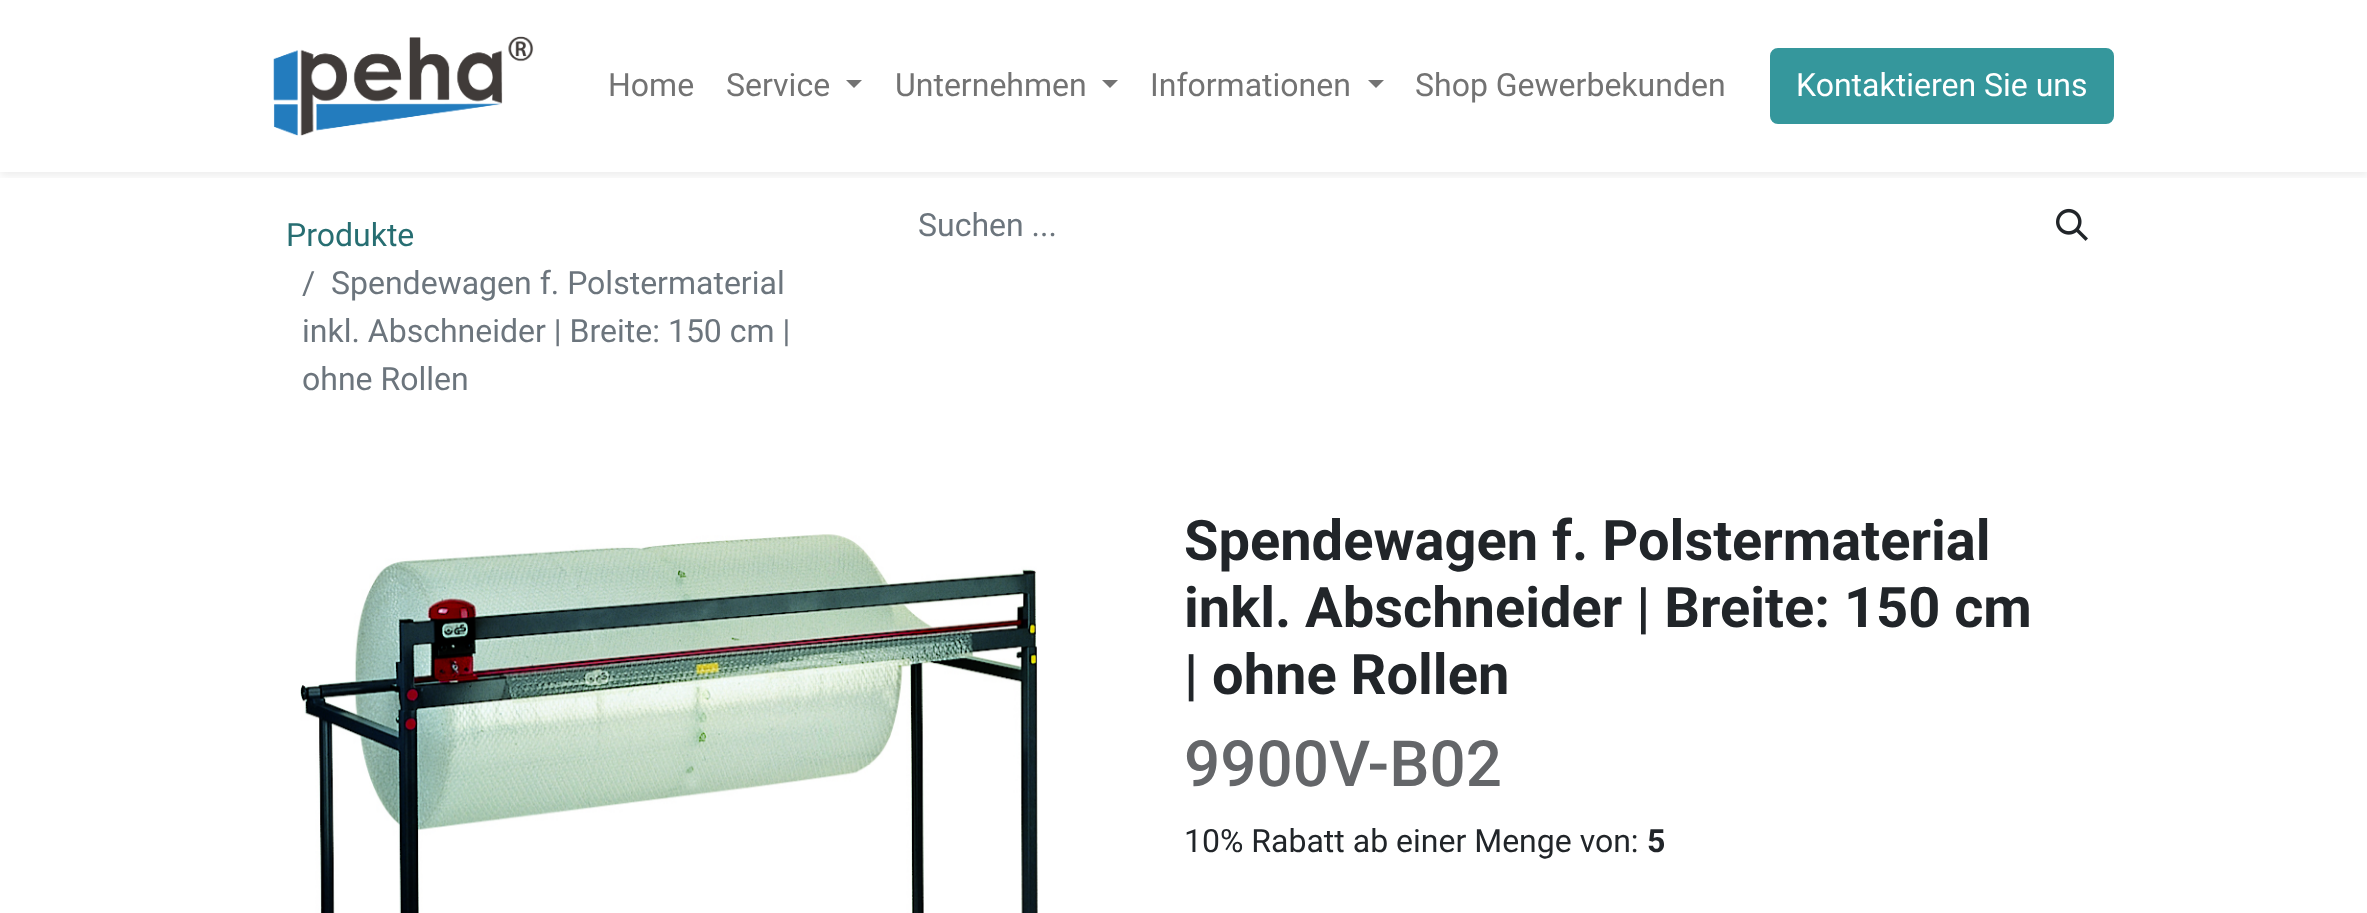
<?xml version="1.0" encoding="UTF-8"?>
<svg xmlns="http://www.w3.org/2000/svg" width="2367" height="913">
    <defs>
        <clipPath id="clip1"><rect x="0" y="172" width="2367" height="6"/></clipPath>
        <filter id="blur1" x="-50%" y="-200%" width="200%" height="500%"><feGaussianBlur stdDeviation="4"/></filter>
    </defs>
    <rect width="100%" height="100%" fill="#FFFFFF"/>
    <g clip-path="url(#clip1)">
        <rect x="0" y="4" width="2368" height="172" fill="#000000" fill-opacity="0.07" filter="url(#blur1)"/>
    </g>
    <image x="273" y="36" width="261" height="100" href="img_01.png"/>
    <text x="608" y="96" font-family="Roboto" font-size="32" fill="#737373">Home</text>
    <text x="726" y="96" font-family="Roboto" font-size="32" fill="#737373">Service</text>
    <path d="M 846 80 H 862 L 854 88 Z" fill="#737373"/>
    <text x="895" y="96" font-family="Roboto" font-size="32" fill="#737373">Unternehmen</text>
    <path d="M 1102 80 H 1118 L 1110 88 Z" fill="#737373"/>
    <text x="1150" y="96" font-family="Roboto" font-size="32" fill="#737373">Informationen</text>
    <path d="M 1368 80 H 1384 L 1376 88 Z" fill="#737373"/>
    <text x="1415" y="96" font-family="Roboto" font-size="32" fill="#737373">Shop Gewerbekunden</text>
    <rect x="1771" y="49" width="342" height="74" rx="7" fill="#35979C" stroke="#35979C" stroke-width="2"/>
    <text x="1796" y="96" font-family="Roboto" font-size="32" fill="#FFFFFF">Kontaktieren Sie uns</text>
    <text x="286" y="246" font-family="Roboto" font-size="32" fill="#276E72">Produkte</text>
    <text x="302" y="294" font-family="Roboto" font-size="32" fill="#6C757D">/</text>
    <text x="331" y="294" font-family="Roboto" font-size="32" fill="#6C757D">Spendewagen f. Polstermaterial</text>
    <text font-family="Roboto" font-size="32" fill="#6C757D">
        <tspan x="302" y="342">inkl. Abschneider | Breite: 150 cm |</tspan>
        <tspan x="302" y="390">ohne Rollen</tspan>
    </text>
    <text x="918" y="236" font-family="Roboto" font-size="32" fill="#6C757D">Suchen ...</text>
    <image x="2056" y="208" width="32" height="33" href="img_02.png"/>
    <image x="300" y="534" width="738" height="379" href="img_03.png"/>
    <text font-family="Roboto" font-size="56" font-weight="700" fill="#212529">
        <tspan x="1184" y="560">Spendewagen f. Polstermaterial</tspan>
        <tspan x="1184" y="627">inkl. Abschneider | Breite: 150 cm</tspan>
        <tspan x="1184" y="694">| ohne Rollen</tspan>
    </text>
    <text x="1184" y="786" font-family="Roboto" font-size="63.75" font-weight="500" fill="#646669">9900V-B02</text>
    <text x="1184" y="852" font-family="Roboto" font-size="32" fill="#212529">10% Rabatt ab einer Menge von:</text>
    <text x="1647" y="852" font-family="Roboto" font-size="32" font-weight="700" fill="#212529">5</text>
</svg>
